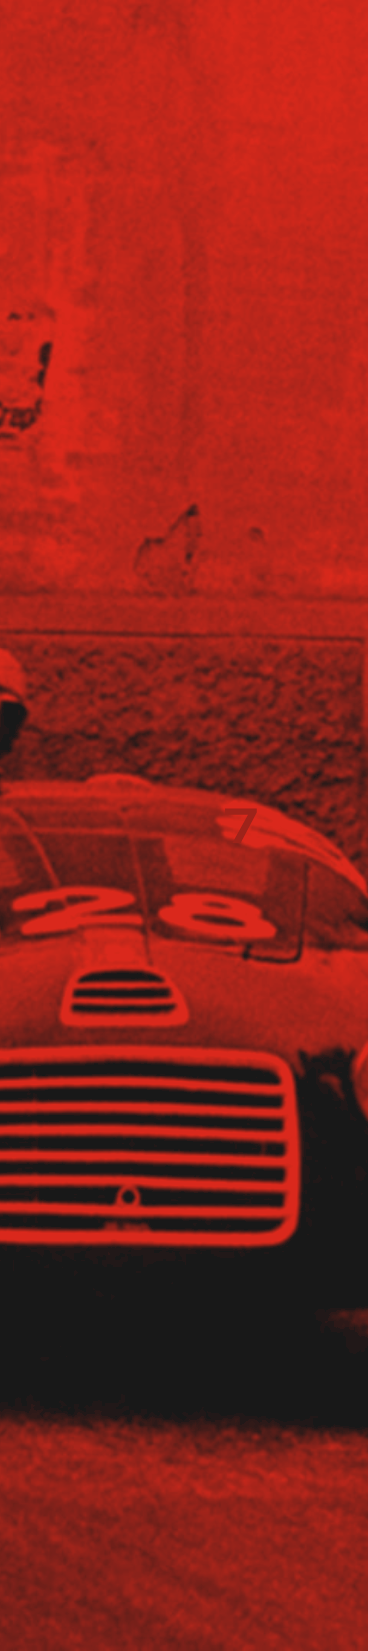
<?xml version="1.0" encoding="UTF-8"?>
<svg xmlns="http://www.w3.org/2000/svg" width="368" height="1651">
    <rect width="100%" height="100%" fill="#FFFFFF"/>
    <image x="0" y="0" width="368" height="1651" href="img_01.png"/>
    <text x="224" y="843" font-family="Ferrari" font-size="48" font-weight="500" fill="#9E231A">7</text>
</svg>
